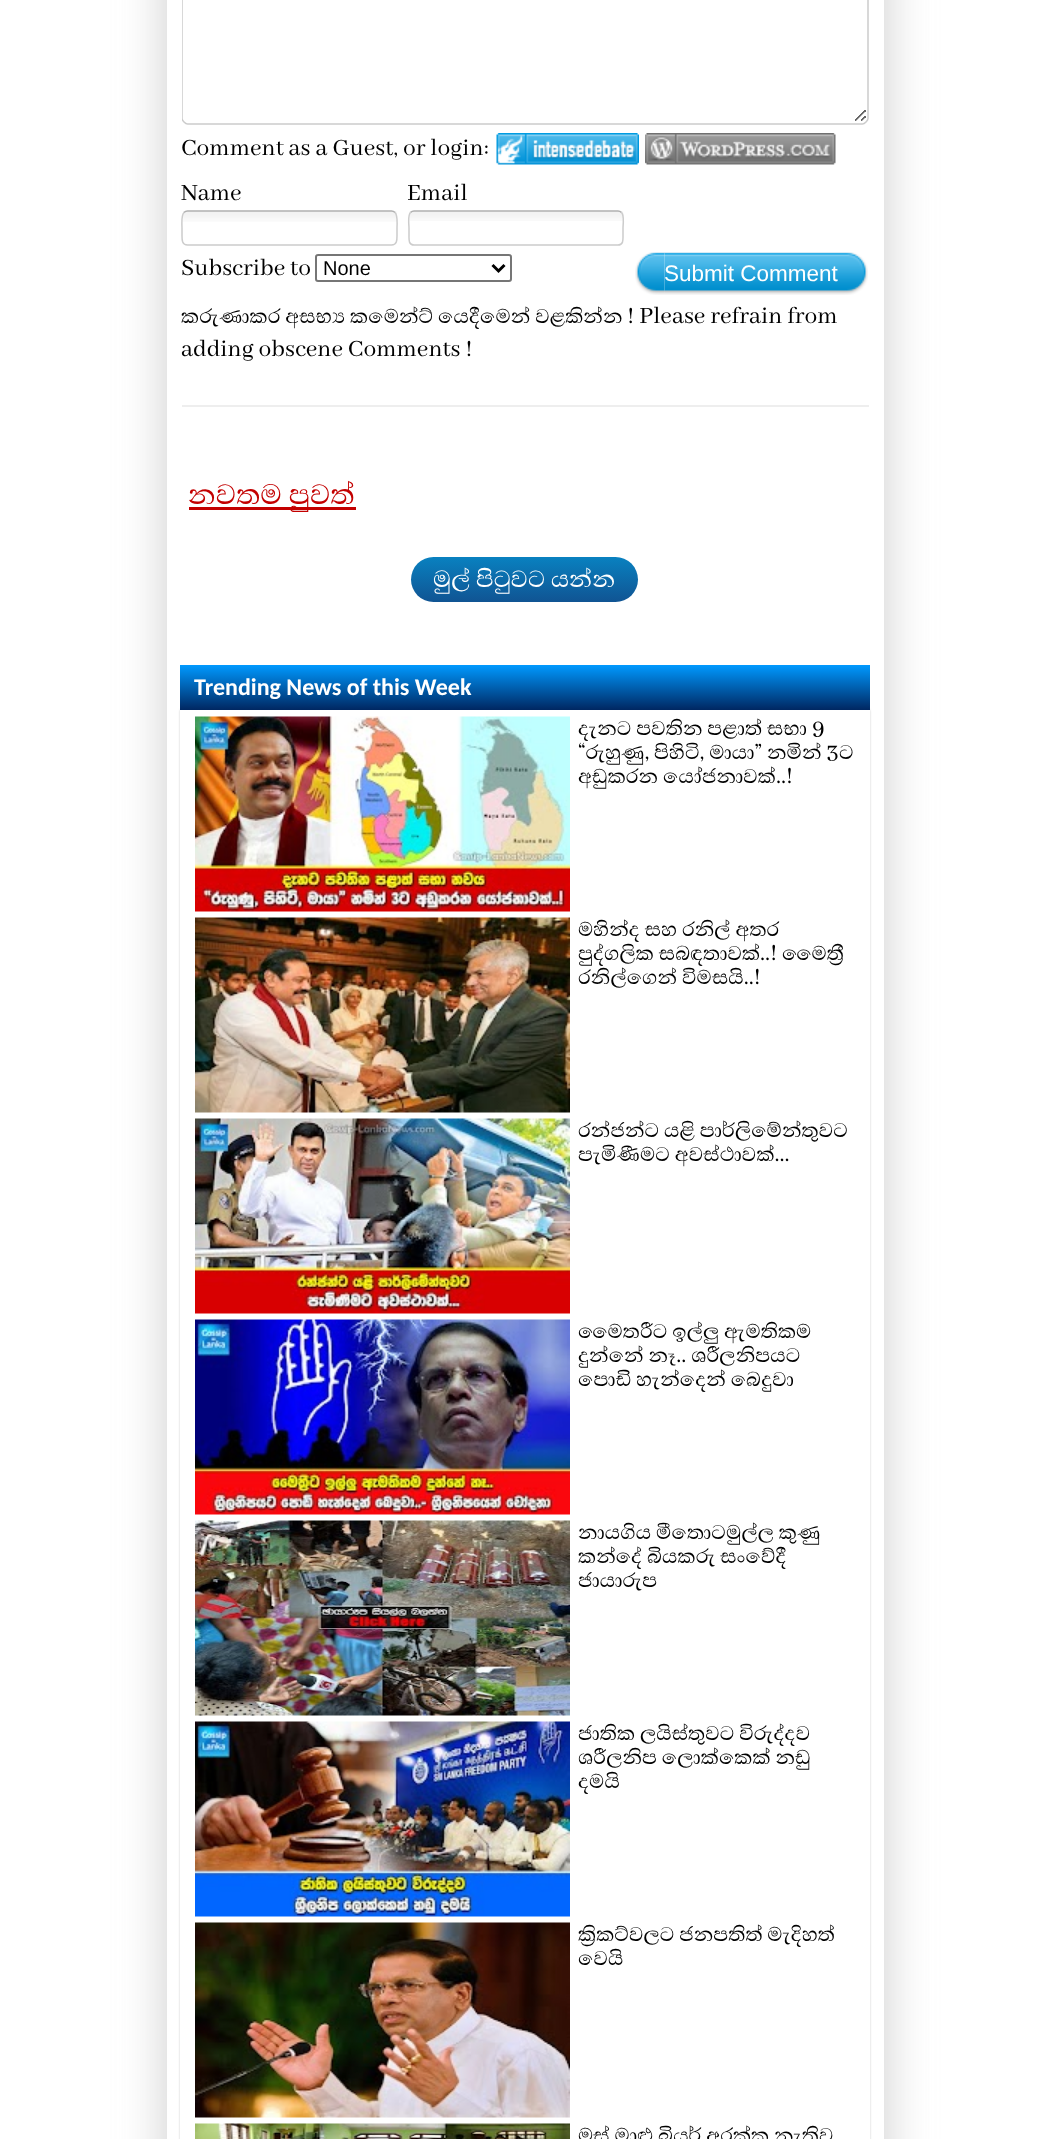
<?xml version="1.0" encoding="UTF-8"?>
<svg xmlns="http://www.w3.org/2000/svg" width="1048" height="2139">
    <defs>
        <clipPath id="clip1"><path d="M 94 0 H 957 V 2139 H 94 Z M 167 -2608 H 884 V 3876 H 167 Z" clip-rule="evenodd"/></clipPath>
        <filter id="blur1" x="-50%" y="-200%" width="200%" height="500%"><feGaussianBlur stdDeviation="24"/></filter>
        <clipPath id="clip2"><rect x="182" y="0" width="687" height="131"/></clipPath>
        <linearGradient id="g1" gradientUnits="userSpaceOnUse" x1="524" y1="557" x2="524" y2="602"><stop offset="0" stop-color="#0981C0"/><stop offset="1" stop-color="#105493"/></linearGradient>
        <clipPath id="clip3"><path d="M 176 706 H 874 V 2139 H 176 Z M 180 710 H 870 V 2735 H 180 Z" clip-rule="evenodd"/></clipPath>
        <filter id="blur2" x="-50%" y="-200%" width="200%" height="500%"><feGaussianBlur stdDeviation="1"/></filter>
        <linearGradient id="g2" gradientUnits="userSpaceOnUse" x1="525" y1="665" x2="525" y2="710"><stop offset="0" stop-color="#0099FF"/><stop offset="1" stop-color="#002761"/></linearGradient>
    </defs>
    <rect width="100%" height="100%" fill="#FFFFFF"/>
    <g clip-path="url(#clip1)">
        <rect x="167" y="-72" width="717" height="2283" fill="#CCCCCC" filter="url(#blur1)"/>
    </g>
    <rect x="883" y="0" width="1" height="642" fill="#FFFFFF"/>
    <image x="855" y="110" width="11" height="11" href="img_01.png"/>
    <g clip-path="url(#clip2)">
        <path d="M 866 -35 C 867 -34 868 -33 868 -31.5 V 118.5 C 868 120 867 121 866 122 C 865 123 864 124 862.5 124 H 187.5 C 186 124 185 123 184 122 C 183 121 182 120 182 118.5 V -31.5 C 182 -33 183 -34 184 -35" fill="none" stroke="#CCCCCC" stroke-width="1.5"/>
    </g>
    <text x="181" y="155" font-family="Abhaya Libre" font-size="25.5" fill="#000000">Comment as a Guest, or login:</text>
    <image x="496" y="133" width="143" height="32" href="img_02.png"/>
    <image x="645" y="133" width="191" height="32" href="img_03.png"/>
    <text x="181" y="200" font-family="Abhaya Libre" font-size="25.5" fill="#000000">Name</text>
    <text x="407" y="200" font-family="Abhaya Libre" font-size="25.5" fill="#000000">Email</text>
    <image x="183" y="211" width="214" height="11" href="img_04.png"/>
    <path d="M 184 212.5 C 185 211.5 186 211 187.5 211 H 391.5 C 393 211 394 211.5 395 212.5" fill="none" stroke="#B0B0B0" stroke-width="1.5"/>
    <path d="M 395 212.5 C 398 215.5 397 224.5 397 228 V 236 C 397 240 397 245 391.5 245 H 187.5 C 182 245 182 240 182 236 V 228 C 182 224.5 181 215.5 184 212.5" fill="none" stroke="#CCCCCC" stroke-width="1.5"/>
    <image x="409" y="211" width="215" height="10" href="img_05.png"/>
    <path d="M 410.5 212.5 C 411.5 211.5 412.5 211 414 211 H 618 C 619.5 211 620.5 211.5 621.5 212.5" fill="none" stroke="#B0B0B0" stroke-width="1.5"/>
    <path d="M 621.5 212.5 C 624.5 215.5 623 224.5 623 228 V 236 C 623 240 623.5 245 618 245 H 414 C 408.5 245 409 240 409 236 V 228 C 409 224.5 407.5 215.5 410.5 212.5" fill="none" stroke="#CCCCCC" stroke-width="1.5"/>
    <text x="181" y="275" font-family="Abhaya Libre" font-size="25.5" fill="#000000">Subscribe to</text>
    <rect x="316" y="255" width="195" height="26" rx="2" fill="none" stroke="#767676" stroke-width="2"/>
    <path d="M 492.5 265 L 498.5 271 L 504.5 265" fill="none" stroke="#000000" stroke-width="3"/>
    <text x="323" y="275" font-family="Liberation Sans" font-size="20" fill="#000000">None</text>
    <image x="635" y="252" width="30" height="43" href="img_06.png"/>
    <image x="664" y="252" width="204" height="43" href="img_07.png"/>
    <text x="664" y="281" font-family="Liberation Sans" font-size="22.5" fill="#FFFFFF">Submit Comment</text>
    <text font-family="Abhaya Libre" font-size="25.5" fill="#000000">
        <tspan x="181" y="323">කරුණාකර අසභ්‍ය කමෙන්ට් යෙදීමෙන් වළකින්න ! Please refrain from</tspan>
        <tspan x="181" y="356">adding obscene Comments !</tspan>
    </text>
    <rect x="182" y="405" width="687" height="2" fill="#EEEEEE"/>
    <rect x="189" y="507" width="167" height="3" fill="#C30000"/>
    <text x="188" y="504" font-family="Abhaya Libre" font-size="36" fill="#C30000">නවතම පුවත්</text>
    <rect x="411" y="557" width="227" height="45" rx="22.5" fill="url(#g1)"/>
    <text x="433" y="587" font-family="Abhaya Libre" font-size="30" fill="#FFFFFF">මුල් පිටුවට යන්න</text>
    <g clip-path="url(#clip3)">
        <rect x="180" y="710" width="690" height="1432" fill="#CCCCCC" filter="url(#blur2)"/>
    </g>
    <rect x="180" y="665" width="690" height="45" fill="url(#g2)"/>
    <text x="194" y="695" font-family="Carlito" font-size="24" font-weight="700" fill="#FFFFFF">Trending News of this Week</text>
    <image x="195" y="716" width="375" height="196" href="img_08.png"/>
    <text font-family="Abhaya Libre" font-size="25.5" fill="#000000">
        <tspan x="578" y="735">දැනට පවතින පළාත් සභා 9</tspan>
        <tspan x="578" y="759">“රුහුණු, පිහිටි, මායා” නමින් 3ට</tspan>
        <tspan x="578" y="783">අඩුකරන යෝජනාවක්..!</tspan>
    </text>
    <image x="195" y="917" width="375" height="196" href="img_09.png"/>
    <text font-family="Abhaya Libre" font-size="25.5" fill="#000000">
        <tspan x="578" y="936">මහින්ද සහ රනිල් අතර</tspan>
        <tspan x="578" y="960">පුද්ගලික සබඳතාවක්..! මෛත්‍රී</tspan>
        <tspan x="578" y="984">රනිල්ගෙන් විමසයි..!</tspan>
    </text>
    <image x="195" y="1118" width="375" height="196" href="img_10.png"/>
    <text font-family="Abhaya Libre" font-size="25.5" fill="#000000">
        <tspan x="578" y="1137">රන්ජන්ට යළි පාර්ලිමේන්තුවට</tspan>
        <tspan x="578" y="1161">පැමිණීමට අවස්ථාවක්...</tspan>
    </text>
    <image x="195" y="1319" width="375" height="196" href="img_11.png"/>
    <text font-family="Abhaya Libre" font-size="25.5" fill="#000000">
        <tspan x="578" y="1338">මෛත‍්‍රීට ඉල්ලු ඇමතිකම</tspan>
        <tspan x="578" y="1362">දුන්නේ නෑ.. ශ‍්‍රීලනිපයට</tspan>
        <tspan x="578" y="1386">පොඩි හැන්දෙන් බෙදුවා</tspan>
    </text>
    <image x="195" y="1520" width="375" height="196" href="img_12.png"/>
    <text font-family="Abhaya Libre" font-size="25.5" fill="#000000">
        <tspan x="578" y="1539">නායගිය මීතොටමුල්ල කුණු</tspan>
        <tspan x="578" y="1563">කන්දේ බියකරු සංවේදී</tspan>
        <tspan x="578" y="1587">ජායාරුප</tspan>
    </text>
    <image x="195" y="1721" width="375" height="196" href="img_13.png"/>
    <text font-family="Abhaya Libre" font-size="25.5" fill="#000000">
        <tspan x="578" y="1740">ජාතික ලයිස්තුවට විරුද්දව</tspan>
        <tspan x="578" y="1764">ශ‍්‍රීලනිප ලොක්කෙක් නඩු</tspan>
        <tspan x="578" y="1788">දමයි</tspan>
    </text>
    <image x="195" y="1922" width="375" height="196" href="img_14.png"/>
    <text font-family="Abhaya Libre" font-size="25.5" fill="#000000">
        <tspan x="578" y="1941">ක්‍රිකට්වලට ජනපතිත් මැදිහත්</tspan>
        <tspan x="578" y="1965">වෙයි</tspan>
    </text>
    <image x="195" y="2123" width="375" height="16" href="img_15.png"/>
    <text x="578" y="2142" font-family="Abhaya Libre" font-size="25.5" fill="#000000">මස්,මාළු,බියර්,අරක්කු නැතිව</text>
</svg>
